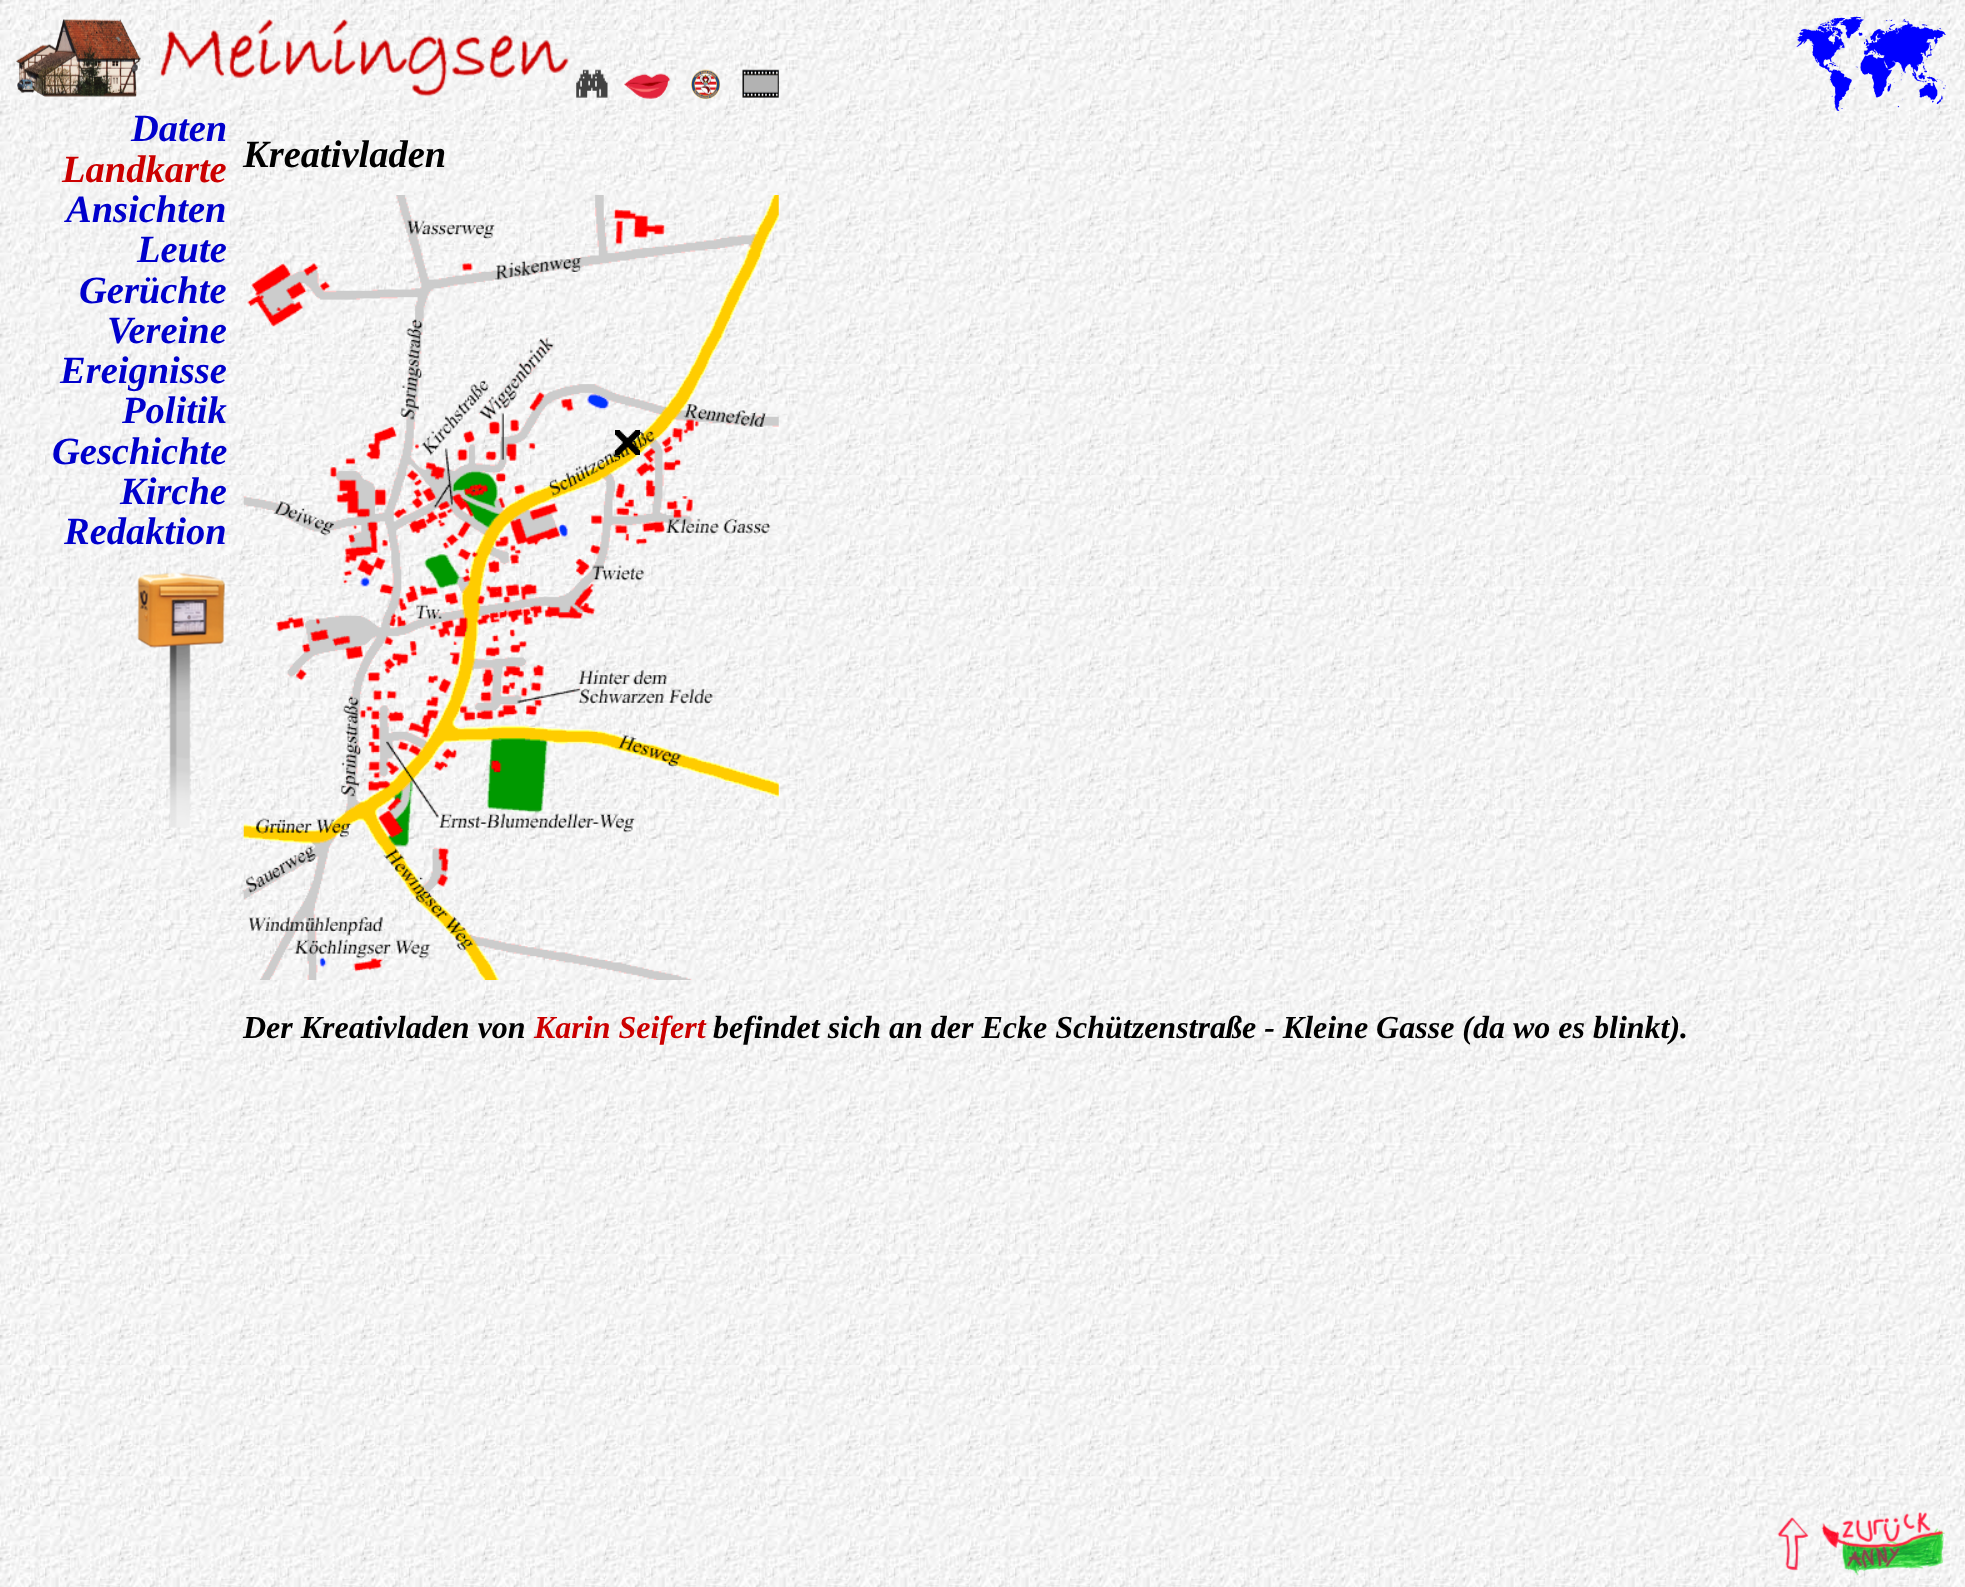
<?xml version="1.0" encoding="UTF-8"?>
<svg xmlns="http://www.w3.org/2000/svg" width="1965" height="1587">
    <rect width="100%" height="100%" fill="#FFFFFF"/>
    <image x="0" y="0" width="1965" height="1587" href="img_01.png"/>
    <image x="16" y="19" width="125" height="78" href="img_02.png"/>
    <image x="160" y="19" width="409" height="78" href="img_03.png"/>
    <image x="576" y="69" width="32" height="29" href="img_04.png"/>
    <image x="624" y="73" width="46" height="26" href="img_05.png"/>
    <image x="691" y="69" width="29" height="30" href="img_06.png"/>
    <image x="742" y="69" width="37" height="29" href="img_07.png"/>
    <image x="1796" y="16" width="150" height="95" href="img_08.png"/>
    <image x="0" y="109" width="223" height="618" href="img_09.png"/>
    <text x="131" y="141" font-family="Liberation Serif" font-size="38.5" font-weight="700" font-style="italic" fill="#0000CC">Daten</text>
    <text x="62" y="182" font-family="Liberation Serif" font-size="38.5" font-weight="700" font-style="italic" fill="#CC0000">Landkarte</text>
    <text x="66" y="222" font-family="Liberation Serif" font-size="38.5" font-weight="700" font-style="italic" fill="#0000CC">Ansichten</text>
    <text x="137" y="262" font-family="Liberation Serif" font-size="38.5" font-weight="700" font-style="italic" fill="#0000CC">Leute</text>
    <text x="79" y="303" font-family="Liberation Serif" font-size="38.5" font-weight="700" font-style="italic" fill="#0000CC">Gerüchte</text>
    <text x="107" y="343" font-family="Liberation Serif" font-size="38.5" font-weight="700" font-style="italic" fill="#0000CC">Vereine</text>
    <text x="60" y="383" font-family="Liberation Serif" font-size="38.5" font-weight="700" font-style="italic" fill="#0000CC">Ereignisse</text>
    <text x="122" y="423" font-family="Liberation Serif" font-size="38.5" font-weight="700" font-style="italic" fill="#0000CC">Politik</text>
    <text x="52" y="464" font-family="Liberation Serif" font-size="38.5" font-weight="700" font-style="italic" fill="#0000CC">Geschichte</text>
    <text x="120" y="504" font-family="Liberation Serif" font-size="38.5" font-weight="700" font-style="italic" fill="#0000CC">Kirche</text>
    <text x="64" y="544" font-family="Liberation Serif" font-size="38.5" font-weight="700" font-style="italic" fill="#0000CC">Redaktion</text>
    <image x="169" y="644" width="22" height="184" href="img_11.png"/>
    <image x="137" y="572" width="88" height="76" href="img_10.png"/>
    <text x="243" y="167" font-family="Liberation Serif" font-size="38.5" font-weight="700" font-style="italic" fill="#000000">Kreativladen</text>
    <image x="243" y="195" width="536" height="785" href="img_12.png"/>
    <image x="615" y="430" width="25" height="25" href="img_13.png"/>
    <text x="243" y="1038" font-family="Liberation Serif" font-size="32" font-weight="700" font-style="italic" fill="#000000">Der Kreativladen von</text>
    <text x="534" y="1038" font-family="Liberation Serif" font-size="32" font-weight="700" font-style="italic" fill="#CC0000">Karin Seifert</text>
    <text x="713" y="1038" font-family="Liberation Serif" font-size="32" font-weight="700" font-style="italic" fill="#000000">befindet sich an der Ecke Schützenstraße - Kleine Gasse (da wo es blinkt).</text>
    <image x="1777" y="1517" width="32" height="54" href="img_14.png"/>
    <image x="1821" y="1512" width="124" height="64" href="img_15.png"/>
</svg>
